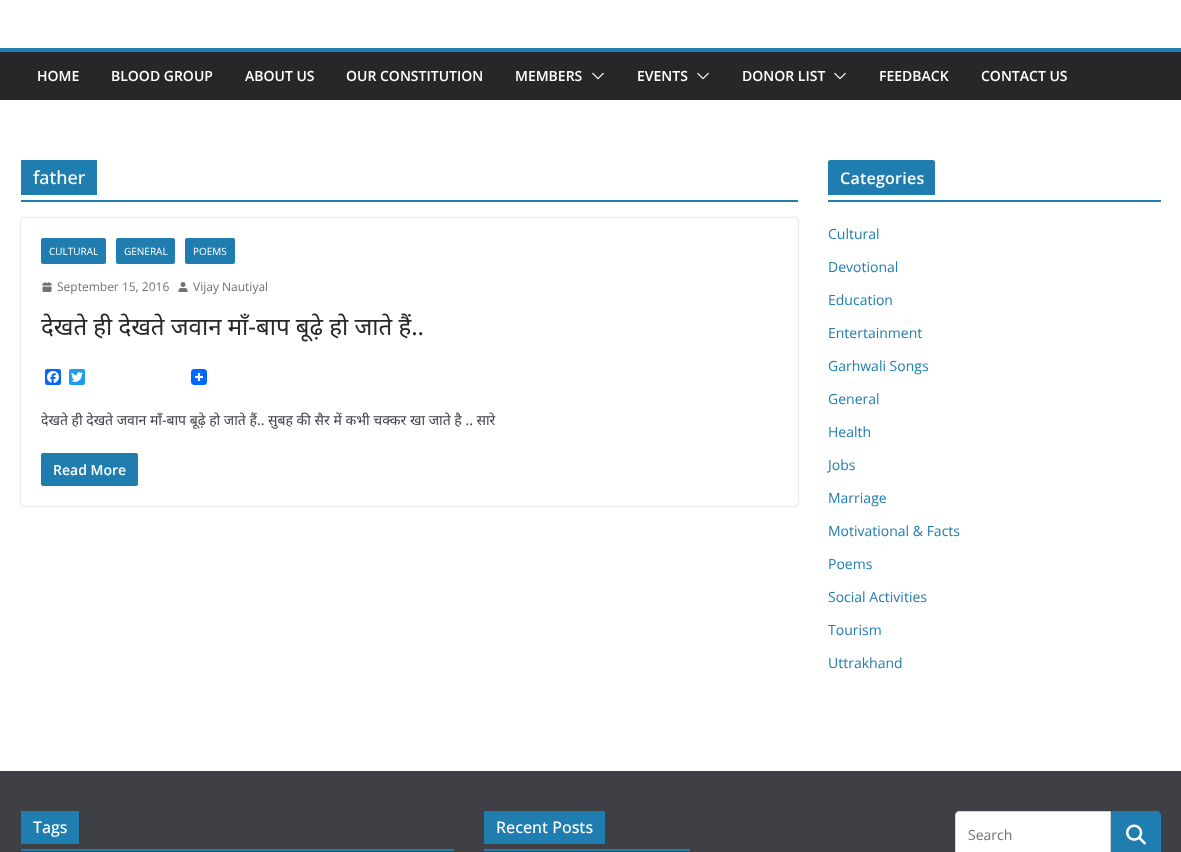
<?xml version="1.0" encoding="UTF-8"?>
<svg xmlns="http://www.w3.org/2000/svg" width="1181" height="852">
    <defs>
        <clipPath id="clip1"><path d="M 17 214 H 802 V 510 H 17 Z M 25 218 H 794 C 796 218 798 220 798 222 V 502 C 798 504 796 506 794 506 H 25 C 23 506 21 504 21 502 V 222 C 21 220 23 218 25 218 Z" clip-rule="evenodd"/></clipPath>
        <filter id="blur1" x="-50%" y="-200%" width="200%" height="500%"><feGaussianBlur stdDeviation="1"/></filter>
    </defs>
    <rect width="100%" height="100%" fill="#FFFFFF"/>
    <rect x="0" y="52" width="1181" height="48" fill="#27272A"/>
    <rect x="0" y="48" width="1181" height="4" fill="#207DAF"/>
    <text x="37" y="81" font-family="Open Sans" font-size="14" font-weight="600" fill="#FFFFFF">HOME</text>
    <text x="111" y="81" font-family="Open Sans" font-size="14" font-weight="600" fill="#FFFFFF">BLOOD GROUP</text>
    <text x="245" y="81" font-family="Open Sans" font-size="14" font-weight="600" fill="#FFFFFF">ABOUT US</text>
    <text x="346" y="81" font-family="Open Sans" font-size="14" font-weight="600" fill="#FFFFFF">OUR CONSTITUTION</text>
    <text x="515" y="81" font-family="Open Sans" font-size="14" font-weight="600" fill="#FFFFFF">MEMBERS</text>
    <image x="592" y="72" width="12" height="8" href="img_01.png"/>
    <text x="637" y="81" font-family="Open Sans" font-size="14" font-weight="600" fill="#FFFFFF">EVENTS</text>
    <image x="697" y="72" width="12" height="8" href="img_01.png"/>
    <text x="742" y="81" font-family="Open Sans" font-size="14" font-weight="600" fill="#FFFFFF">DONOR LIST</text>
    <image x="834" y="72" width="12" height="8" href="img_01.png"/>
    <text x="879" y="81" font-family="Open Sans" font-size="14" font-weight="600" fill="#FFFFFF">FEEDBACK</text>
    <text x="981" y="81" font-family="Open Sans" font-size="14" font-weight="600" fill="#FFFFFF">CONTACT US</text>
    <rect x="21" y="200" width="777" height="2" fill="#207DAF"/>
    <rect x="21" y="160" width="76" height="35" fill="#207DAF"/>
    <text x="33" y="184" font-family="Open Sans" font-size="18" font-weight="500" fill="#FFFFFF">father</text>
    <g clip-path="url(#clip1)">
        <rect x="21" y="218" width="777" height="288" rx="4" fill="#000000" fill-opacity="0.24" filter="url(#blur1)"/>
    </g>
    <rect x="41" y="238" width="65" height="26" rx="2" fill="#207DAF"/>
    <text x="49" y="255" font-family="Open Sans" font-size="10" fill="#FFFFFF">CULTURAL</text>
    <rect x="116" y="238" width="59" height="26" rx="2" fill="#207DAF"/>
    <text x="124" y="255" font-family="Open Sans" font-size="10" fill="#FFFFFF">GENERAL</text>
    <rect x="185" y="238" width="50" height="26" rx="2" fill="#207DAF"/>
    <text x="193" y="255" font-family="Open Sans" font-size="10" fill="#FFFFFF">POEMS</text>
    <image x="42" y="282" width="10" height="10" href="img_02.png"/>
    <text x="57" y="291" font-family="Open Sans" font-size="12" fill="#71717A">September 15, 2016</text>
    <image x="178" y="282" width="10" height="10" href="img_03.png"/>
    <text x="193" y="291" font-family="Open Sans" font-size="12" fill="#71717A">Vijay Nautiyal</text>
    <text x="41" y="335" font-family="Noto Sans" font-size="24" fill="#27272A">देखते ही देखते जवान माँ-बाप बूढ़े हो जाते हैं..</text>
    <rect x="45" y="369" width="16" height="16" rx="2" fill="#0866FF"/>
    <image x="47" y="371" width="12" height="12" href="img_04.png"/>
    <rect x="69" y="369" width="16" height="16" rx="2" fill="#1D9BF0"/>
    <image x="71" y="372" width="12" height="10" href="img_05.png"/>
    <image x="191" y="369" width="16" height="16" href="img_06.png"/>
    <text x="41" y="425" font-family="Noto Sans" font-size="14" fill="#3F3F46">देखते ही देखते जवान माँ-बाप बूढ़े हो जाते हैं.. सुबह की सैर में कभी चक्कर खा जाते है .. सारे</text>
    <rect x="41" y="453" width="97" height="33" rx="2" fill="#207DAF"/>
    <text x="53" y="475" font-family="Open Sans" font-size="14" font-weight="600" fill="#FFFFFF">Read More</text>
    <rect x="828" y="200" width="333" height="2" fill="#207DAF"/>
    <path d="M 830 160 H 933 C 934 160 935 161 935 162 V 195 H 828 V 162 C 828 161 829 160 830 160 Z" fill="#207DAF"/>
    <text x="840" y="184" font-family="Open Sans" font-size="16" font-weight="600" letter-spacing="0.25" fill="#FFFFFF">Categories</text>
    <text x="828" y="239" font-family="Open Sans" font-size="14" fill="#207DAF">Cultural</text>
    <text x="828" y="272" font-family="Open Sans" font-size="14" fill="#207DAF">Devotional</text>
    <text x="828" y="305" font-family="Open Sans" font-size="14" fill="#207DAF">Education</text>
    <text x="828" y="338" font-family="Open Sans" font-size="14" fill="#207DAF">Entertainment</text>
    <text x="828" y="371" font-family="Open Sans" font-size="14" fill="#207DAF">Garhwali Songs</text>
    <text x="828" y="404" font-family="Open Sans" font-size="14" fill="#207DAF">General</text>
    <text x="828" y="437" font-family="Open Sans" font-size="14" fill="#207DAF">Health</text>
    <text x="828" y="470" font-family="Open Sans" font-size="14" fill="#207DAF">Jobs</text>
    <text x="828" y="503" font-family="Open Sans" font-size="14" fill="#207DAF">Marriage</text>
    <text x="828" y="536" font-family="Open Sans" font-size="14" fill="#207DAF">Motivational &amp; Facts</text>
    <text x="828" y="569" font-family="Open Sans" font-size="14" fill="#207DAF">Poems</text>
    <text x="828" y="602" font-family="Open Sans" font-size="14" fill="#207DAF">Social Activities</text>
    <text x="828" y="635" font-family="Open Sans" font-size="14" fill="#207DAF">Tourism</text>
    <text x="828" y="668" font-family="Open Sans" font-size="14" fill="#207DAF">Uttrakhand</text>
    <rect x="0" y="771" width="1181" height="81" fill="#3F3F46"/>
    <rect x="21" y="849" width="433" height="2" fill="#207DAF"/>
    <rect x="21" y="811" width="58" height="33" fill="#207DAF"/>
    <text x="33" y="833" font-family="Open Sans" font-size="16" font-weight="500" fill="#FFFFFF">Tags</text>
    <rect x="484" y="849" width="206" height="2" fill="#207DAF"/>
    <rect x="484" y="811" width="121" height="33" fill="#207DAF"/>
    <text x="496" y="833" font-family="Open Sans" font-size="16" font-weight="500" fill="#FFFFFF">Recent Posts</text>
    <path d="M 959 811.5 H 1110.5 V 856.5 H 959 C 957 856.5 955.5 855 955.5 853 V 815 C 955.5 813 957 811.5 959 811.5 Z" fill="#FFFFFF" stroke="#D4D4D8"/>
    <text x="968" y="840" font-family="Open Sans" font-size="14" fill="#71717A">Search</text>
    <path d="M 1111.5 811.5 H 1157 C 1159 811.5 1160.5 813 1160.5 815 V 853 C 1160.5 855 1159 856.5 1157 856.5 H 1111.5 Z" fill="#207DAF" stroke="#207DAF"/>
    <image x="1126" y="824" width="20" height="21" href="img_07.png"/>
</svg>
